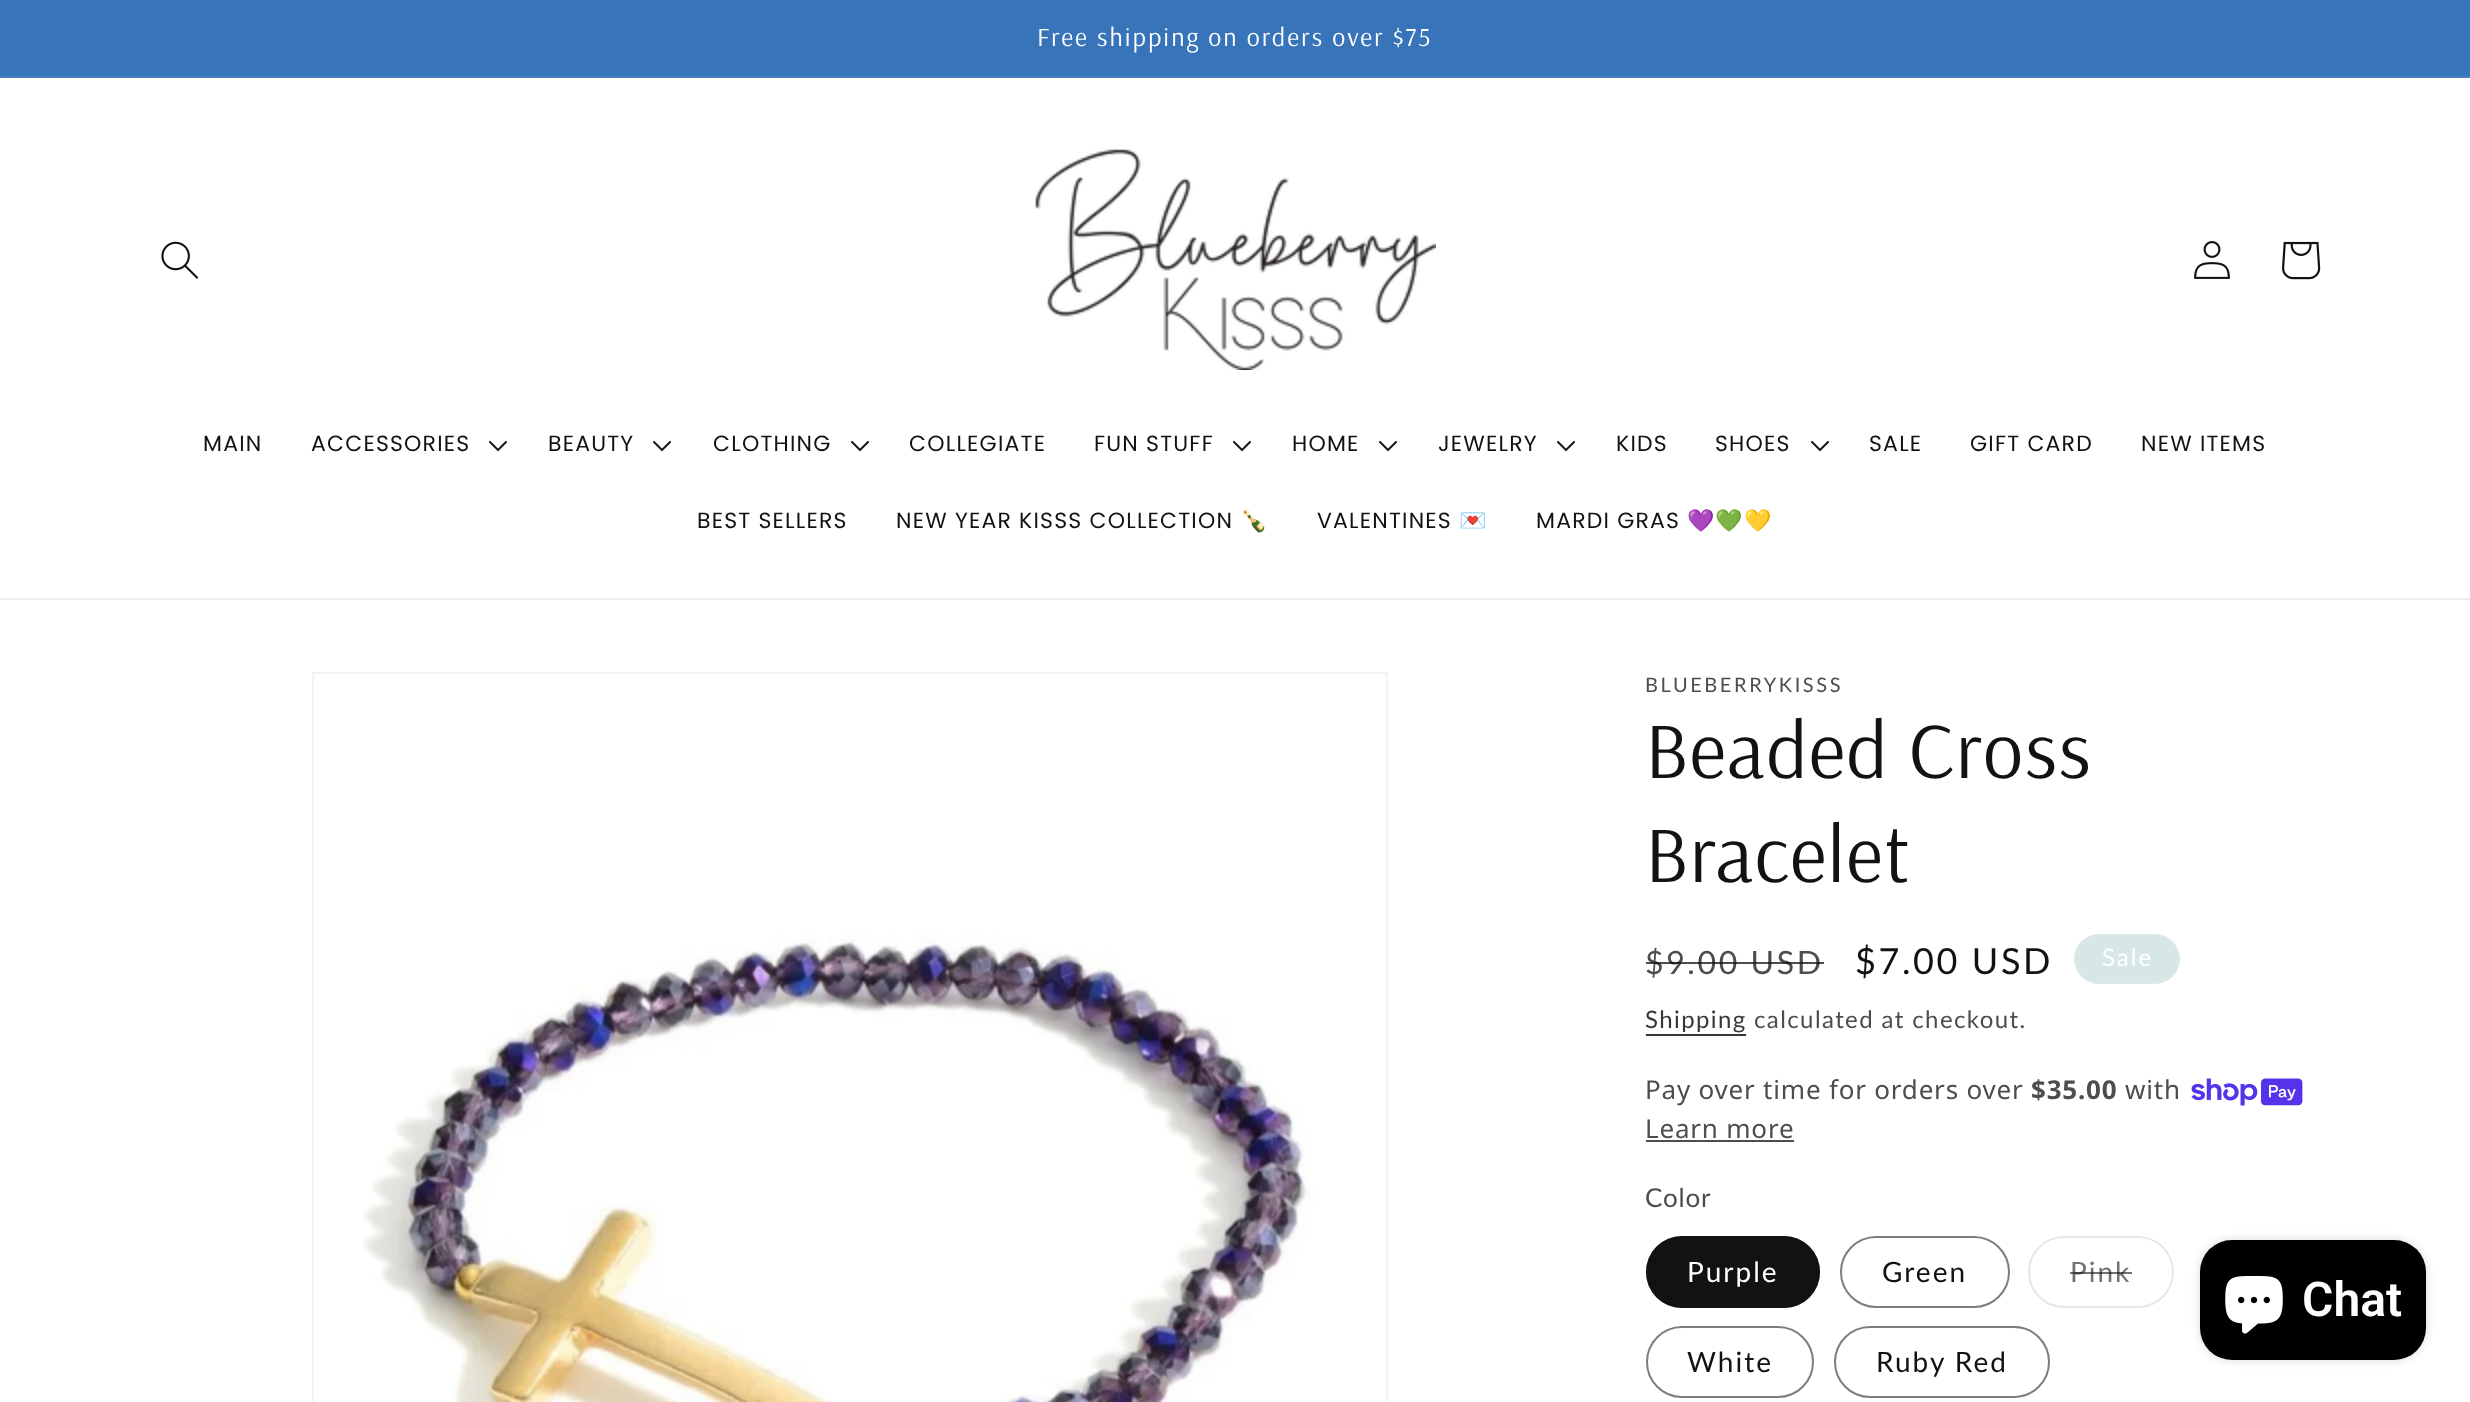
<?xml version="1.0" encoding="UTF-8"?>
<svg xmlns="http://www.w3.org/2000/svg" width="2470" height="1402">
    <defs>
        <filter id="blur1" x="-50%" y="-200%" width="200%" height="500%"><feGaussianBlur stdDeviation="5"/></filter>
    </defs>
    <rect width="100%" height="100%" fill="#FFFFFF"/>
    <rect x="0" y="0" width="2470" height="76" fill="#3874BA"/>
    <rect x="0" y="76" width="2470" height="2" fill="#487FC0"/>
    <text x="1037" y="46" font-family="Arsenal" font-size="26" letter-spacing="2" fill="#FFFFFF">Free shipping on orders over $75</text>
    <rect x="0" y="598" width="2470" height="2" fill="#ECECEC"/>
    <image x="161" y="241" width="37" height="38" href="img_01.png"/>
    <image x="1035" y="149" width="401" height="221" href="img_02.png"/>
    <image x="2194" y="241" width="36" height="38" href="img_03.png"/>
    <image x="2282" y="241" width="39" height="39" href="img_04.png"/>
    <text x="203" y="451" font-family="Poppins" font-size="22" letter-spacing="1.2" fill="#121212">MAIN</text>
    <text x="311" y="451" font-family="Poppins" font-size="22" letter-spacing="1.2" fill="#121212">ACCESSORIES</text>
    <image x="489" y="441" width="18" height="10" href="img_05.png"/>
    <text x="548" y="451" font-family="Poppins" font-size="22" letter-spacing="1.2" fill="#121212">BEAUTY</text>
    <image x="653" y="441" width="18" height="10" href="img_05.png"/>
    <text x="713" y="451" font-family="Poppins" font-size="22" letter-spacing="1.2" fill="#121212">CLOTHING</text>
    <image x="851" y="441" width="18" height="10" href="img_05.png"/>
    <text x="909" y="451" font-family="Poppins" font-size="22" letter-spacing="1.2" fill="#121212">COLLEGIATE</text>
    <text x="1094" y="451" font-family="Poppins" font-size="22" letter-spacing="1.2" fill="#121212">FUN STUFF</text>
    <image x="1233" y="441" width="18" height="10" href="img_05.png"/>
    <text x="1292" y="451" font-family="Poppins" font-size="22" letter-spacing="1.2" fill="#121212">HOME</text>
    <image x="1379" y="441" width="18" height="10" href="img_05.png"/>
    <text x="1438" y="451" font-family="Poppins" font-size="22" letter-spacing="1.2" fill="#121212">JEWELRY</text>
    <image x="1557" y="441" width="18" height="10" href="img_05.png"/>
    <text x="1616" y="451" font-family="Poppins" font-size="22" letter-spacing="1.2" fill="#121212">KIDS</text>
    <text x="1715" y="451" font-family="Poppins" font-size="22" letter-spacing="1.2" fill="#121212">SHOES</text>
    <image x="1811" y="441" width="18" height="10" href="img_05.png"/>
    <text x="1869" y="451" font-family="Poppins" font-size="22" letter-spacing="1.2" fill="#121212">SALE</text>
    <text x="1970" y="451" font-family="Poppins" font-size="22" letter-spacing="1.2" fill="#121212">GIFT CARD</text>
    <text x="2141" y="451" font-family="Poppins" font-size="22" letter-spacing="1.2" fill="#121212">NEW ITEMS</text>
    <text x="697" y="528" font-family="Poppins" font-size="22" letter-spacing="1.2" fill="#121212">BEST SELLERS</text>
    <text x="896" y="528" font-family="Poppins" font-size="22" letter-spacing="1.2" fill="#121212">NEW YEAR KISSS COLLECTION</text>
    <text x="1240" y="528" font-family="Noto Color Emoji" font-size="22" letter-spacing="1.2" fill="#121212">🍾</text>
    <text x="1317" y="528" font-family="Poppins" font-size="22" letter-spacing="1.2" fill="#121212">VALENTINES</text>
    <text x="1459" y="528" font-family="Noto Color Emoji" font-size="22" letter-spacing="1.2" fill="#121212">💌</text>
    <text x="1536" y="528" font-family="Poppins" font-size="22" letter-spacing="1.2" fill="#121212">MARDI GRAS</text>
    <text x="1687" y="528" font-family="Noto Color Emoji" font-size="22" letter-spacing="1.2" fill="#121212">💜💚💛</text>
    <rect x="313" y="673" width="1074" height="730" fill="none" stroke="#F3F3F3" stroke-width="2"/>
    <image x="362" y="934" width="951" height="468" href="img_06.png"/>
    <text x="1645" y="692" font-family="Lato" font-size="20" letter-spacing="2.6" fill="#4D4D4D">BLUEBERRYKISSS</text>
    <text font-family="Arsenal" font-size="80" letter-spacing="1.2" fill="#121212">
        <tspan x="1645" y="778">Beaded Cross</tspan>
        <tspan x="1645" y="882">Bracelet</tspan>
    </text>
    <text x="1645" y="974" font-family="Lato" font-size="32" letter-spacing="2.6" fill="#4D4D4D">$9.00 USD</text>
    <rect x="1646" y="962" width="178" height="2" fill="#121212" fill-opacity="0.75"/>
    <text x="1855" y="974" font-family="Lato" font-size="36" letter-spacing="2.6" fill="#121212">$7.00 USD</text>
    <rect x="2074" y="934" width="106" height="50" rx="25" fill="#D6E7E6"/>
    <rect x="2075" y="935" width="104" height="48" rx="24" fill="none" stroke="#FFFFFF" stroke-opacity="0.1" stroke-width="2"/>
    <text x="2102" y="966" font-family="Lato" font-size="24" letter-spacing="2" fill="#FFFFFF">Sale</text>
    <text x="1645" y="1028" font-family="Lato" font-size="24" letter-spacing="1.4" fill="#363636">Shipping</text>
    <rect x="1646" y="1034" width="100" height="2" fill="#363636"/>
    <text x="1754" y="1028" font-family="Lato" font-size="24" letter-spacing="1.4" fill="#4D4D4D">calculated at checkout.</text>
    <text x="1645" y="1099" font-family="Noto Sans" font-size="26" letter-spacing="0.8" fill="#4D4D4D">Pay over time for orders over</text>
    <text x="2031" y="1099" font-family="Noto Sans" font-size="26" font-weight="700" letter-spacing="0.8" fill="#4D4D4D">$35.00</text>
    <text x="2125" y="1099" font-family="Noto Sans" font-size="26" letter-spacing="0.8" fill="#4D4D4D">with</text>
    <image x="2191" y="1078" width="112" height="28" href="img_07.png"/>
    <text x="1645" y="1138" font-family="Noto Sans" font-size="26" letter-spacing="0.8" fill="#4D4D4D">Learn more</text>
    <rect x="1646" y="1140" width="148" height="2" fill="#4D4D4D"/>
    <text x="1645" y="1207" font-family="Lato" font-size="26" letter-spacing="0.8" fill="#4D4D4D">Color</text>
    <rect x="1646" y="1236" width="174" height="72" rx="36" fill="#121212"/>
    <rect x="1647" y="1237" width="172" height="70" rx="35" fill="none" stroke="#121212" stroke-opacity="0.55" stroke-width="2"/>
    <text x="1687" y="1282" font-family="Lato" font-size="28" letter-spacing="2" fill="#FFFFFF">Purple</text>
    <rect x="1841" y="1237" width="168" height="70" rx="35" fill="none" stroke="#7D7D7D" stroke-width="2"/>
    <text x="1882" y="1282" font-family="Lato" font-size="28" letter-spacing="2" fill="#121212">Green</text>
    <rect x="2029" y="1237" width="144" height="70" rx="35" fill="none" stroke="#E7E7E7" stroke-width="2"/>
    <text x="2070" y="1282" font-family="Lato" font-size="28" letter-spacing="2" fill="#717171">Pink</text>
    <rect x="2070" y="1272" width="62" height="2" fill="#121212" fill-opacity="0.6"/>
    <rect x="1647" y="1327" width="166" height="70" rx="35" fill="none" stroke="#7D7D7D" stroke-width="2"/>
    <text x="1687" y="1372" font-family="Lato" font-size="28" letter-spacing="2" fill="#121212">White</text>
    <rect x="1835" y="1327" width="214" height="70" rx="35" fill="none" stroke="#7D7D7D" stroke-width="2"/>
    <text x="1876" y="1372" font-family="Lato" font-size="28" letter-spacing="2" fill="#121212">Ruby Red</text>
    <rect x="2200" y="1240" width="226" height="120" rx="32" fill="#000000" fill-opacity="0.15" filter="url(#blur1)"/>
    <rect x="2200" y="1240" width="226" height="120" rx="32" fill="#000000"/>
    <image x="2225" y="1276" width="58" height="58" href="img_08.png"/>
    <text x="2302" y="1316" font-family="Roboto" font-size="48" font-weight="600" fill="#FFFFFF">Chat</text>
</svg>
